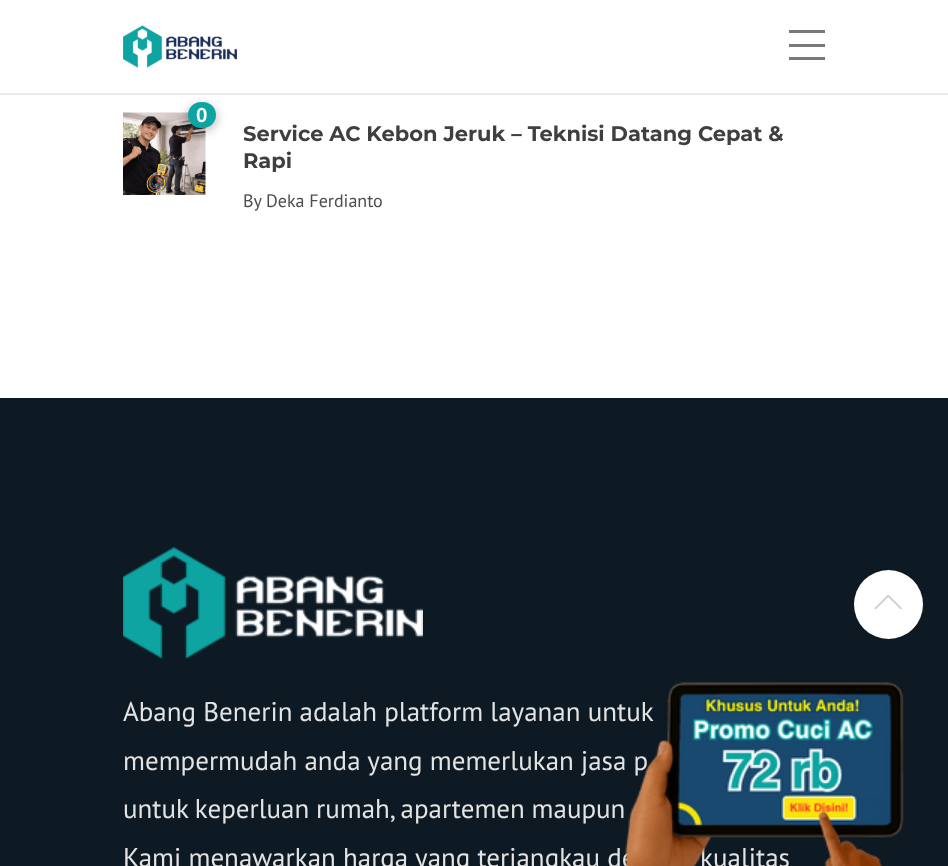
<?xml version="1.0" encoding="UTF-8"?>
<svg xmlns="http://www.w3.org/2000/svg" width="948" height="866">
    <defs>
        <filter id="blur1" x="-50%" y="-200%" width="200%" height="500%"><feGaussianBlur stdDeviation="4"/></filter>
    </defs>
    <rect width="100%" height="100%" fill="#FFFFFF"/>
    <image x="123" y="112" width="83" height="83" href="img_02.png"/>
    <rect x="186" y="104" width="32" height="28" rx="14" fill="#000000" fill-opacity="0.2" filter="url(#blur1)"/>
    <rect x="0" y="93" width="948" height="2" fill="#EBEBEB"/>
    <image x="123" y="25" width="114" height="43" href="img_01.png"/>
    <rect x="789" y="44" width="36" height="3" fill="#797979"/>
    <rect x="789" y="30" width="36" height="3" fill="#797979"/>
    <rect x="789" y="57" width="36" height="3" fill="#797979"/>
    <rect x="188" y="102" width="28" height="26" rx="13" fill="#0EA4A2"/>
    <text x="196" y="122" font-family="PT Sans" font-size="20" font-weight="700" fill="#FFFFFF">0</text>
    <text font-family="Montserrat" font-size="21" font-weight="700" fill="#3F3F3F">
        <tspan x="243" y="141">Service AC Kebon Jeruk – Teknisi Datang Cepat &amp;</tspan>
        <tspan x="243" y="168">Rapi</tspan>
    </text>
    <text x="243" y="207" font-family="PT Sans" font-size="18" fill="#4D4D4D">By Deka Ferdianto</text>
    <rect x="0" y="398" width="948" height="468" fill="#0D1A23"/>
    <image x="123" y="547" width="300" height="112" href="img_03.png"/>
    <text font-family="PT Sans" font-size="27" fill="#E3E3E3">
        <tspan x="123" y="721">Abang Benerin adalah platform layanan untuk</tspan>
        <tspan x="123" y="770">mempermudah anda yang memerlukan jasa p</tspan>
        <tspan x="123" y="818" word-spacing="-0.5">untuk keperluan rumah, apartemen maupun</tspan>
        <tspan x="123" y="867">Kami menawarkan harga yang terjangkau de</tspan>
    </text>
    <text x="700" y="867" font-family="PT Sans" font-size="27" fill="#E3E3E3">kualitas</text>
    <circle cx="888.5" cy="604.5" r="34.5" fill="#FFFFFF"/>
    <image x="874" y="595" width="28" height="15" href="img_04.png"/>
    <image x="625" y="682" width="279" height="184" href="img_05.png"/>
</svg>
